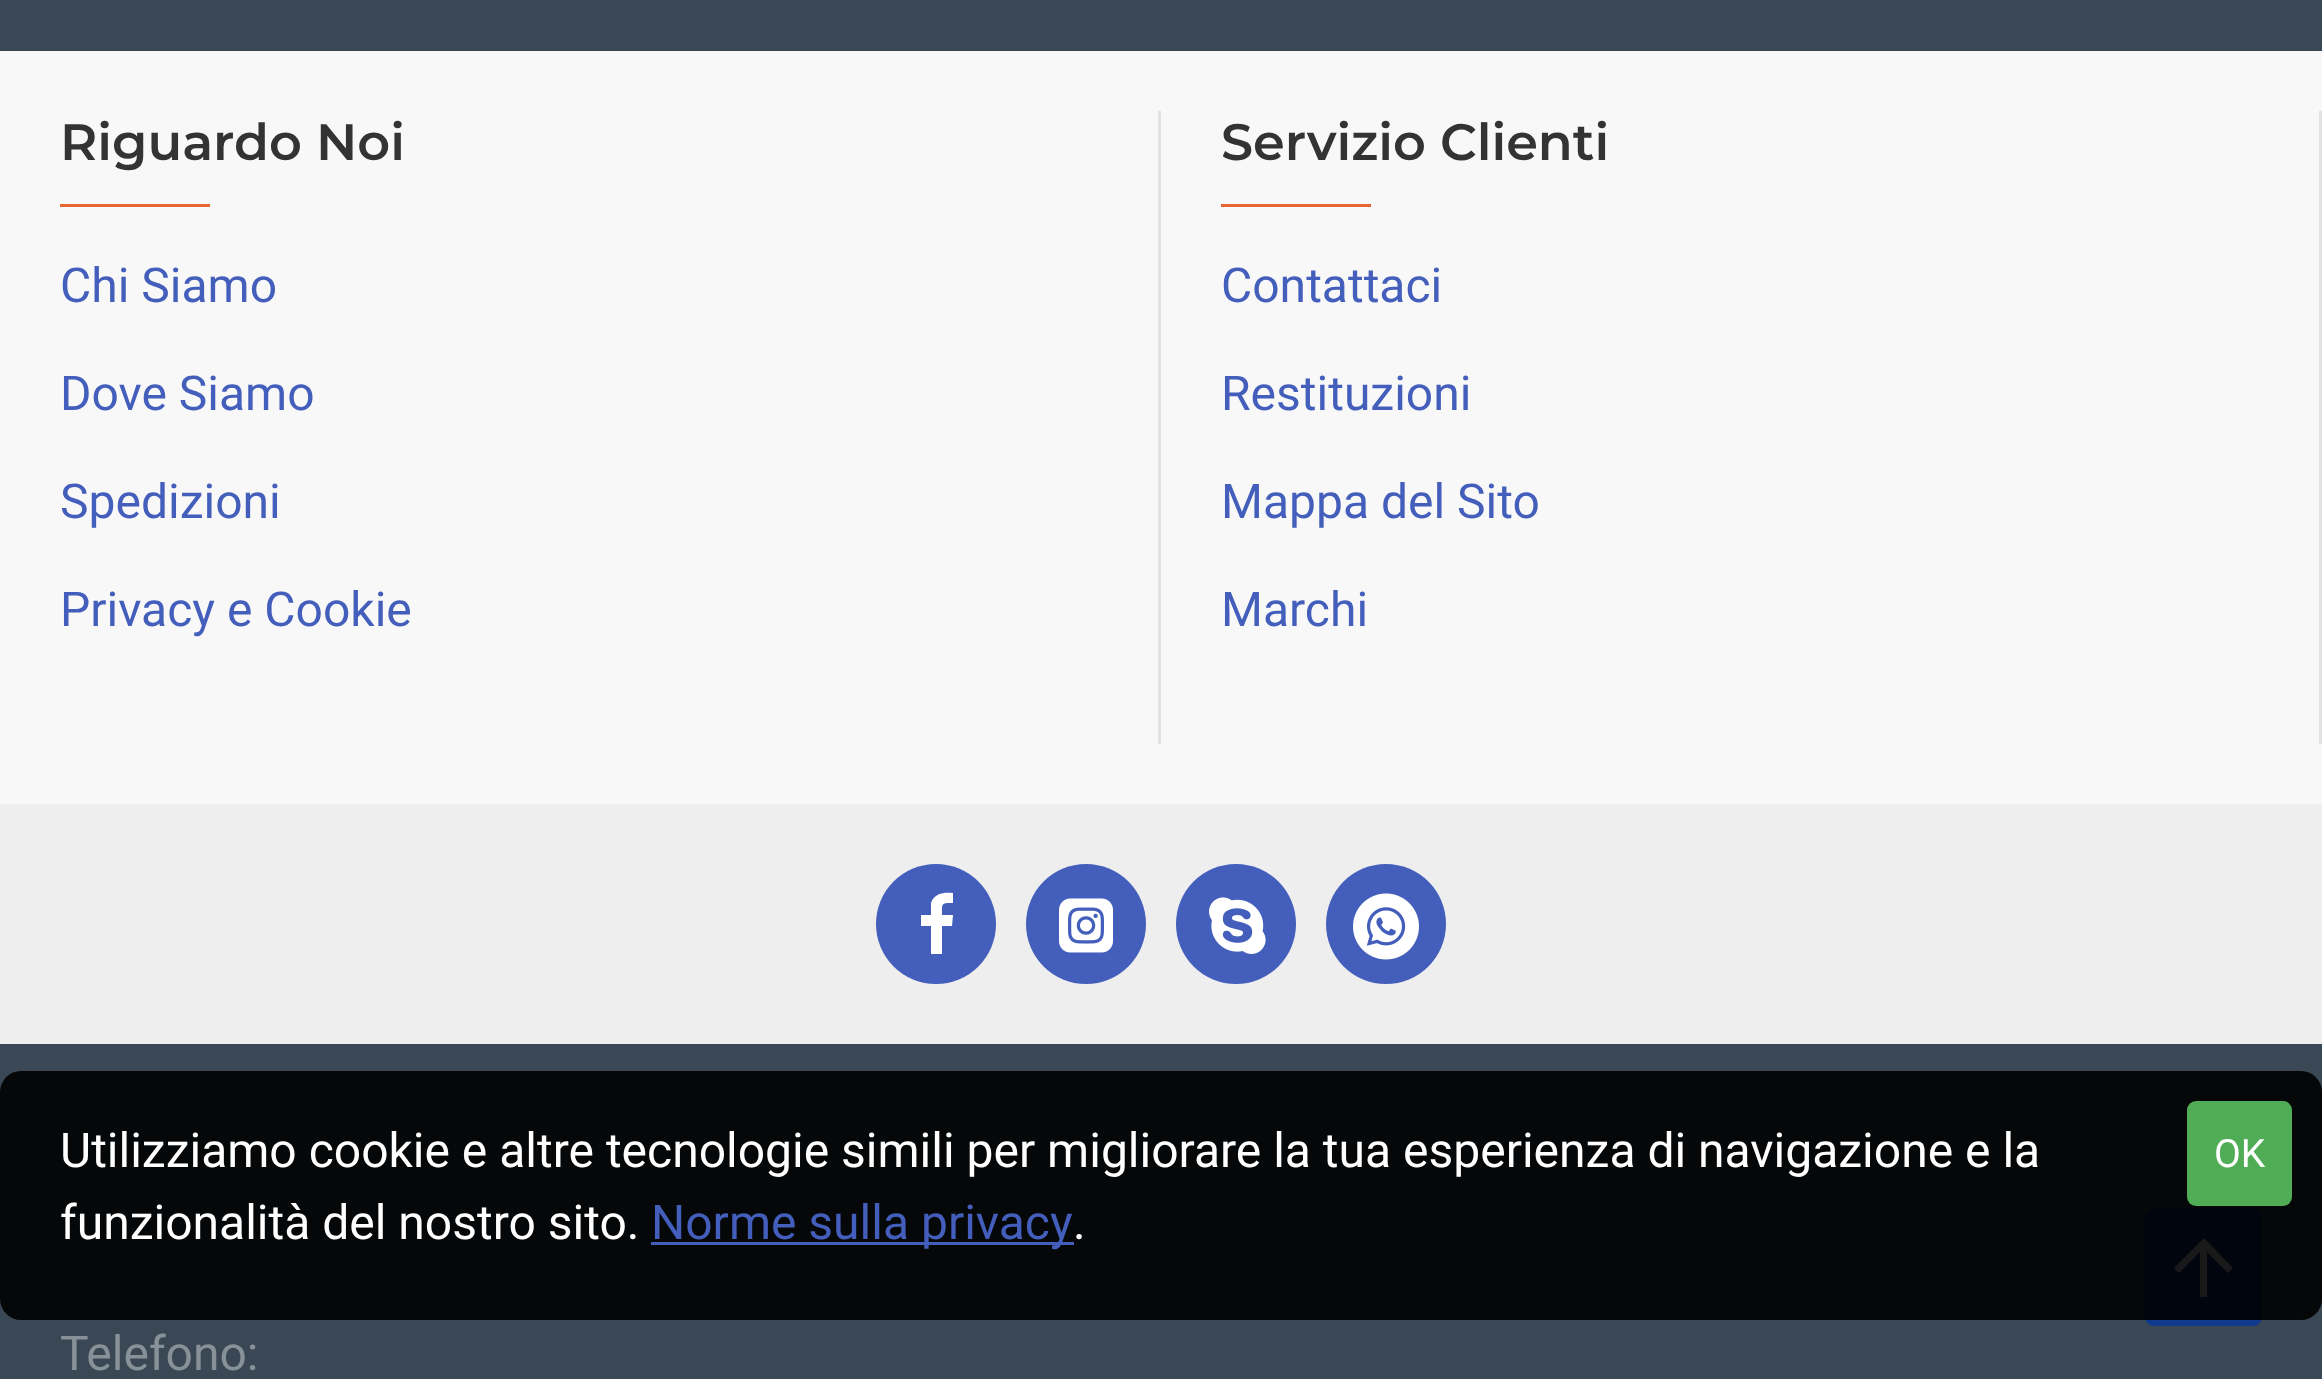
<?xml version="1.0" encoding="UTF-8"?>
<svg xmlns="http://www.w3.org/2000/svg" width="2322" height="1379">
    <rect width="100%" height="100%" fill="#F8F8F8"/>
    <rect x="0" y="0" width="2322" height="51" fill="#3A4754"/>
    <rect x="1158" y="111" width="3" height="633" fill="#E2E2E2"/>
    <text x="60" y="160" font-family="Montserrat" font-size="51" font-weight="600" fill="#333333">Riguardo Noi</text>
    <rect x="60" y="204" width="150" height="3" fill="#E96631"/>
    <text x="60" y="302" font-family="Roboto" font-size="48" fill="#435EBB">Chi Siamo</text>
    <text x="60" y="410" font-family="Roboto" font-size="48" fill="#435EBB">Dove Siamo</text>
    <text x="60" y="518" font-family="Roboto" font-size="48" fill="#435EBB">Spedizioni</text>
    <text x="60" y="626" font-family="Roboto" font-size="48" fill="#435EBB">Privacy e Cookie</text>
    <rect x="2319" y="111" width="3" height="633" fill="#E2E2E2"/>
    <text x="1221" y="160" font-family="Montserrat" font-size="51" font-weight="600" fill="#333333">Servizio Clienti</text>
    <rect x="1221" y="204" width="150" height="3" fill="#E96631"/>
    <text x="1221" y="302" font-family="Roboto" font-size="48" fill="#435EBB">Contattaci</text>
    <text x="1221" y="410" font-family="Roboto" font-size="48" fill="#435EBB">Restituzioni</text>
    <text x="1221" y="518" font-family="Roboto" font-size="48" fill="#435EBB">Mappa del Sito</text>
    <text x="1221" y="626" font-family="Roboto" font-size="48" fill="#435EBB">Marchi</text>
    <rect x="0" y="804" width="2322" height="240" fill="#EEEEEE"/>
    <circle cx="936" cy="924" r="60" fill="#435EBB"/>
    <path d="M 953 893 V 903 C 941 903 942 903 942 915 H 953 L 952 926 H 942 V 954 H 931 V 926 H 921 V 915 H 931 V 903 C 934 893 945 892 953 893 Z" fill="#FFFFFF"/>
    <circle cx="1086" cy="924" r="60" fill="#435EBB"/>
    <image x="1059" y="898" width="54" height="55" href="img_01.png"/>
    <circle cx="1236" cy="924" r="60" fill="#435EBB"/>
    <image x="1209" y="897" width="57" height="57" href="img_02.png"/>
    <circle cx="1386" cy="924" r="60" fill="#435EBB"/>
    <image x="1353" y="893" width="66" height="67" href="img_03.png"/>
    <rect x="0" y="1044" width="2322" height="335" fill="#3A4754"/>
    <text x="60" y="1370" font-family="Roboto" font-size="48" fill="#879198">Telefono:</text>
    <rect x="2145" y="1209" width="117" height="117" rx="9" fill="#0F3A8D"/>
    <path d="M 2174 1268 L 2204 1238 L 2233 1268 L 2228 1273 L 2207 1252 V 1297 H 2200 V 1252 L 2179 1273 Z" fill="#FFFFFF"/>
    <rect x="0" y="1071" width="2322" height="249" rx="21" fill="#000000" fill-opacity="0.9"/>
    <text font-family="Roboto" font-size="48" fill="#FFFFFF">
        <tspan x="60" y="1167">Utilizziamo cookie e altre tecnologie simili per migliorare la tua esperienza di navigazione e la</tspan>
        <tspan x="60" y="1239">funzionalità del nostro sito.</tspan>
    </text>
    <rect x="651" y="1242" width="423" height="3" fill="#435EBB"/>
    <text x="651" y="1239" font-family="Roboto" font-size="48" fill="#435EBB">Norme sulla privacy</text>
    <text x="1073" y="1239" font-family="Roboto" font-size="48" fill="#FFFFFF">.</text>
    <rect x="2187" y="1101" width="105" height="105" rx="9" fill="#50AD55"/>
    <text x="2214" y="1167" font-family="Roboto" font-size="39" fill="#FFFFFF">OK</text>
</svg>
